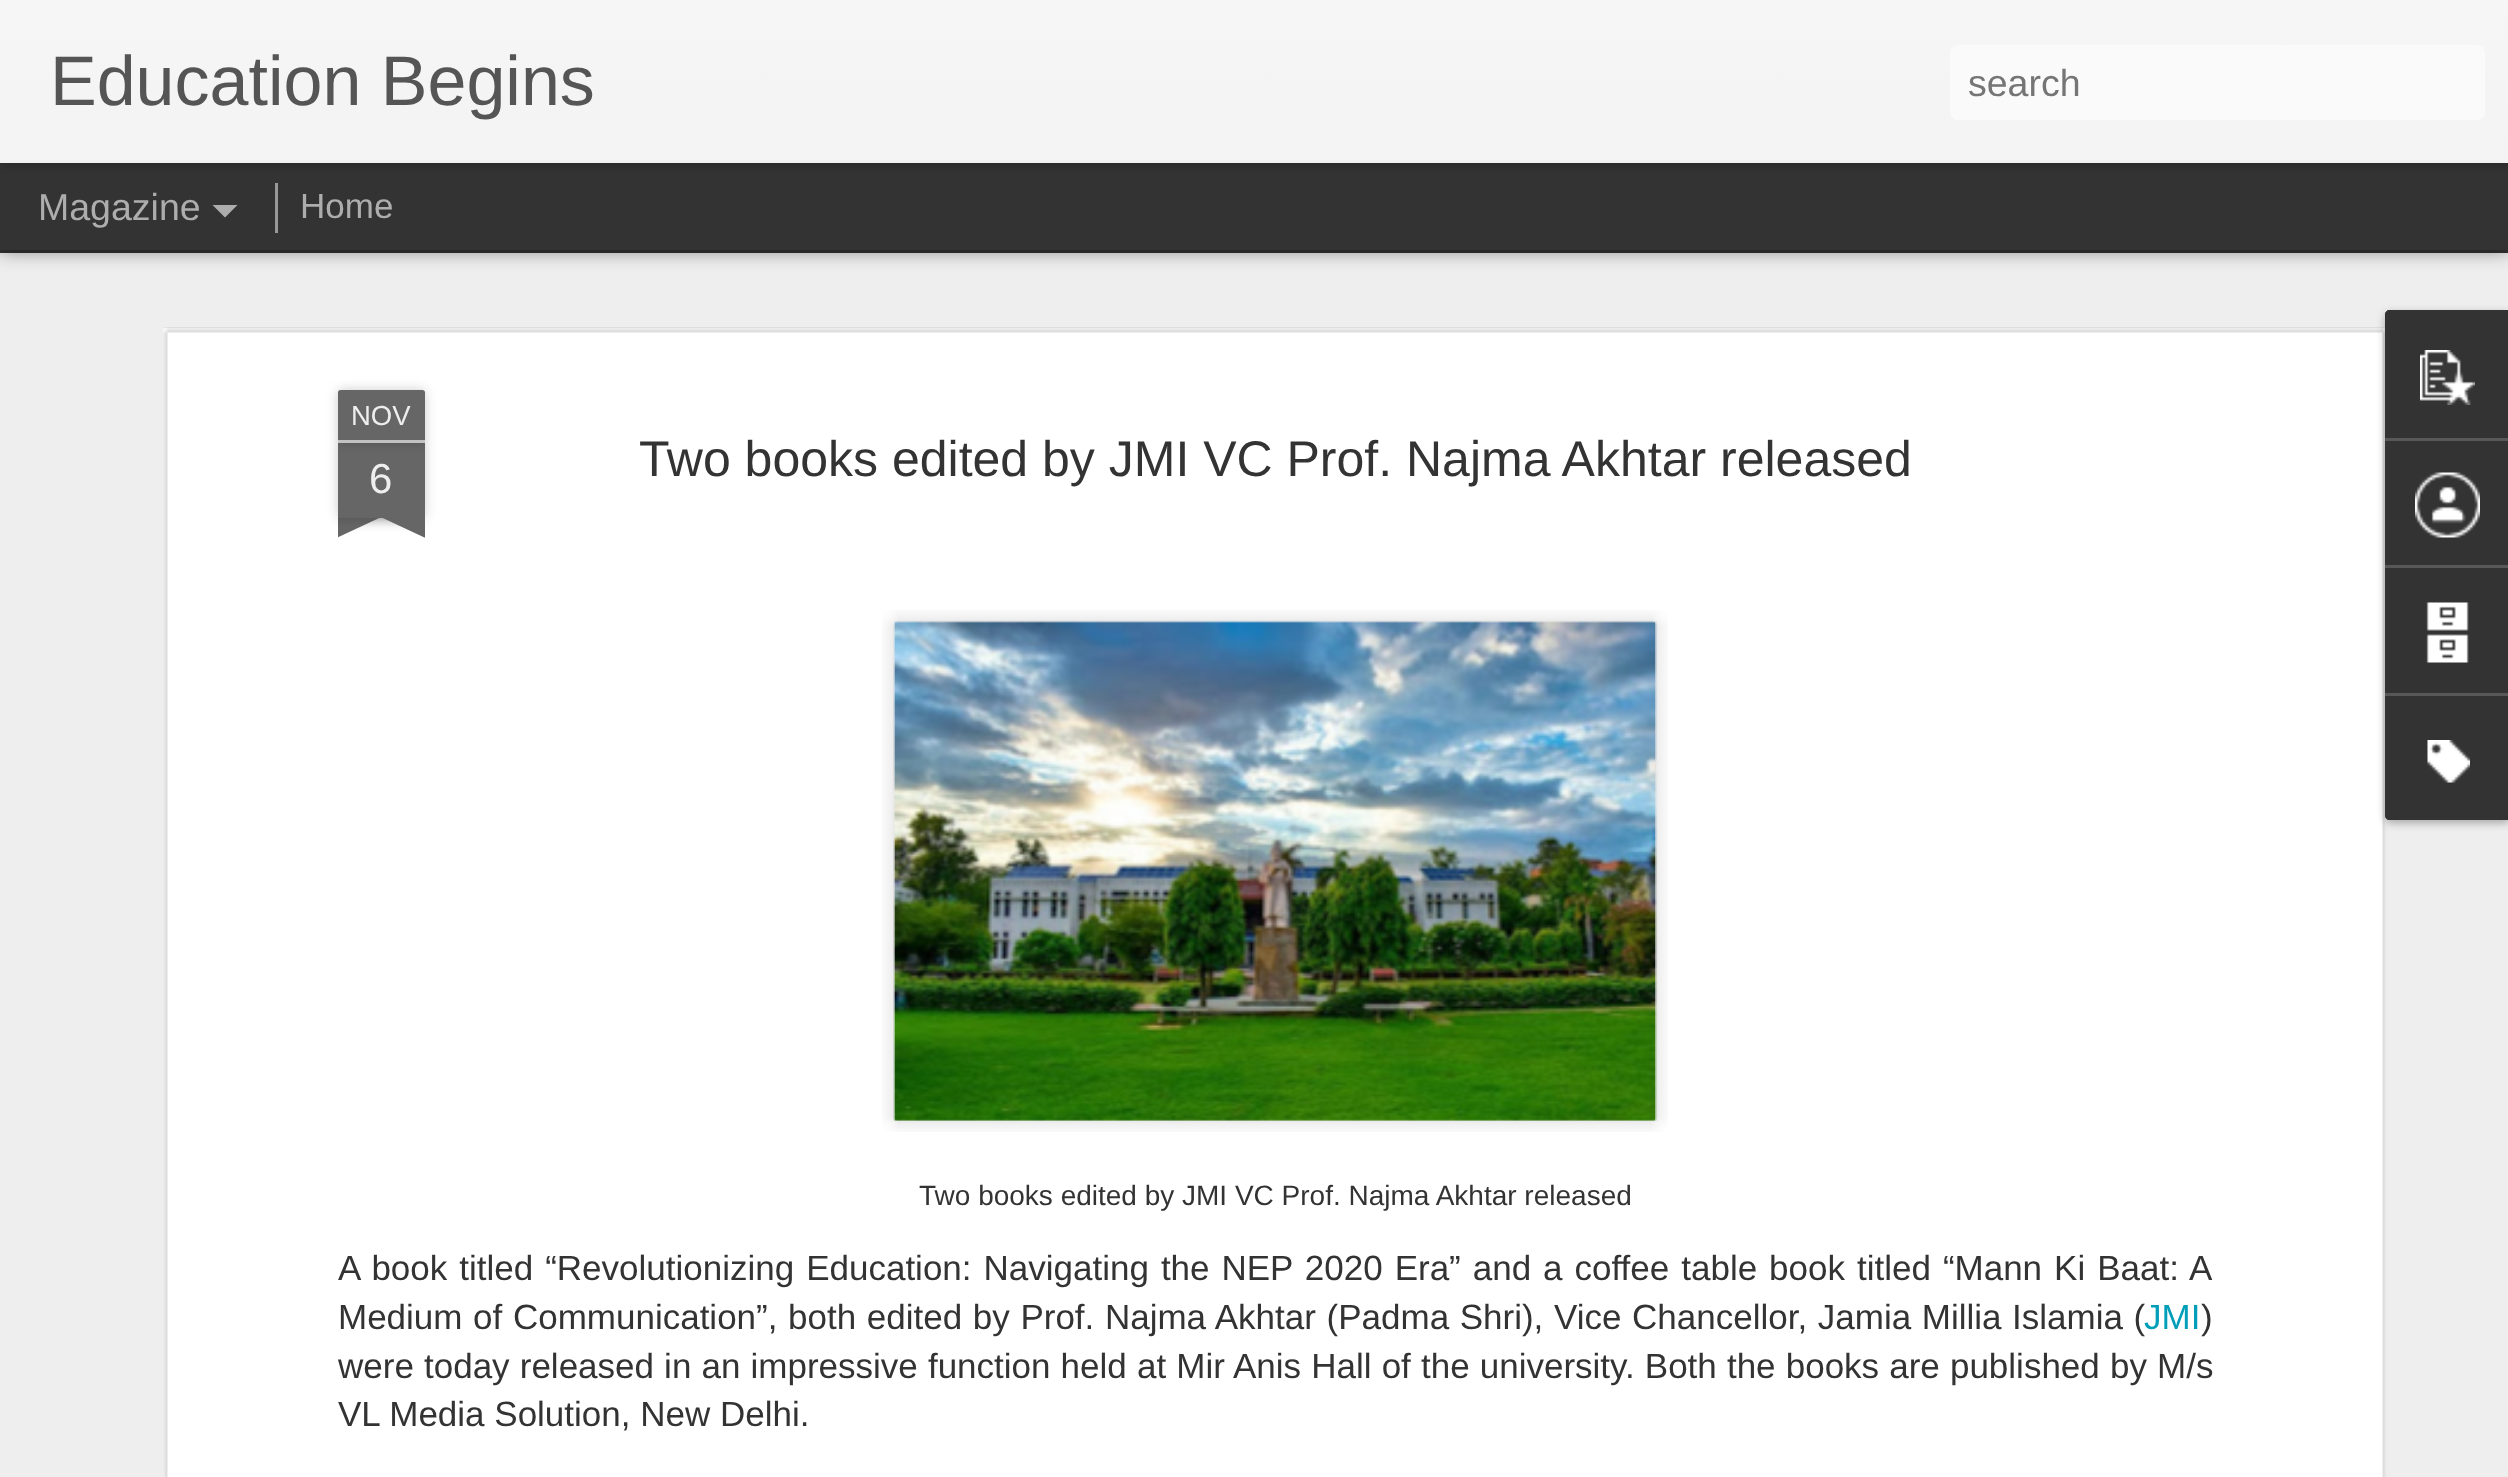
<?xml version="1.0" encoding="UTF-8"?>
<svg xmlns="http://www.w3.org/2000/svg" width="2508" height="1477">
    <defs>
        <filter id="blur1" x="-50%" y="-200%" width="200%" height="500%"><feGaussianBlur stdDeviation="10"/></filter>
        <filter id="blur2" x="-50%" y="-200%" width="200%" height="500%"><feGaussianBlur stdDeviation="6"/></filter>
        <linearGradient id="g1" gradientUnits="userSpaceOnUse" x1="0" y1="0" x2="0" y2="163"><stop offset="0" stop-color="#F6F6F6"/><stop offset="1" stop-color="#F3F3F3"/></linearGradient>
        <clipPath id="clip1"><rect x="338" y="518" width="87" height="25"/></clipPath>
        <filter id="blur3" x="-50%" y="-200%" width="200%" height="500%"><feGaussianBlur stdDeviation="6.5"/></filter>
        <clipPath id="clip2"><rect x="338" y="518" width="87" height="25"/></clipPath>
        <filter id="blur4" x="-50%" y="-200%" width="200%" height="500%"><feGaussianBlur stdDeviation="4"/></filter>
    </defs>
    <rect width="100%" height="100%" fill="#333333"/>
    <rect x="0" y="253" width="2508" height="1224" fill="#EEEEEE"/>
    <rect x="0" y="163" width="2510" height="87" fill="#000000" fill-opacity="0.5" filter="url(#blur1)"/>
    <rect x="0" y="163" width="2508" height="87" fill="#333333"/>
    <rect x="0" y="0" width="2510" height="163" fill="#000000" fill-opacity="0.3" filter="url(#blur2)"/>
    <rect x="0" y="0" width="2508" height="163" fill="url(#g1)"/>
    <text x="50" y="105" font-family="Liberation Sans" font-size="70" fill="#555555">Education Begins</text>
    <rect x="1950" y="45" width="535" height="75" rx="8" fill="#FAFAFA"/>
    <text x="1968" y="96" font-family="Liberation Sans" font-size="37.5" fill="#757575">search</text>
    <text x="38" y="220" font-family="Liberation Sans" font-size="37.5" fill="#ADADAD">Magazine</text>
    <path d="M 212.5 205 H 237.5 L 225 217.5 Z" fill="#ADADAD"/>
    <rect x="275" y="183" width="3" height="50" fill="#999999"/>
    <text x="300" y="218" font-family="Liberation Sans" font-size="35" fill="#ADADAD">Home</text>
    <rect x="163" y="328" width="2225" height="1149" fill="#FFFFFF"/>
    <image x="163" y="327" width="2225" height="1150" href="img_01.png"/>
    <rect x="338" y="443" width="87" height="75" fill="#000000" fill-opacity="0.2" filter="url(#blur2)"/>
    <rect x="338" y="443" width="87" height="75" fill="#666666"/>
    <rect x="338" y="390" width="87" height="53" rx="2.5" fill="#000000" fill-opacity="0.2" filter="url(#blur2)"/>
    <path d="M 340.5 390 H 422.5 C 424 390 425 391 425 392.5 V 443 H 338 V 392.5 C 338 391 339 390 340.5 390 Z" fill="#666666"/>
    <rect x="338" y="440" width="87" height="3" fill="#C2C2C2"/>
    <text x="351" y="425" font-family="Liberation Sans" font-size="27.5" fill="#EEEEEE">NOV</text>
    <text x="369" y="493" font-family="Liberation Sans" font-size="42" fill="#EEEEEE">6</text>
    <g clip-path="url(#clip1)">
        <rect x="315" y="493" width="125" height="25" fill="#000000" fill-opacity="0.2" filter="url(#blur3)"/>
    </g>
    <g clip-path="url(#clip2)">
        <path d="M 316 520 L 429 467 L 439 490 L 326 543 Z" fill="#666666"/>
    </g>
    <g clip-path="url(#clip1)">
        <rect x="323" y="493" width="125" height="25" fill="#000000" fill-opacity="0.2" filter="url(#blur3)"/>
    </g>
    <g clip-path="url(#clip2)">
        <path d="M 334 467 L 447 520 L 436 543 L 323 490 Z" fill="#666666"/>
    </g>
    <text x="639" y="476" font-family="Liberation Sans" font-size="50" fill="#333333">Two books edited by JMI VC Prof. Najma Akhtar released</text>
    <image x="882" y="610" width="786" height="522" href="img_02.png"/>
    <image x="893" y="620" width="765" height="501" href="img_03.png"/>
    <text x="919" y="1205" font-family="Liberation Sans" font-size="28" fill="#333333">Two books edited by JMI VC Prof. Najma Akhtar released</text>
    <text font-family="Liberation Sans" font-size="35" fill="#333333">
        <tspan x="338" y="1280" word-spacing="2.25">A book titled “Revolutionizing Education: Navigating the NEP 2020 Era” and a coffee table book titled “Mann Ki Baat: A</tspan>
        <tspan x="338" y="1329" word-spacing="0.9">Medium of Communication”, both edited by Prof. Najma Akhtar (Padma Shri), Vice Chancellor, Jamia Millia Islamia (</tspan>
    </text>
    <text x="2144" y="1329" font-family="Liberation Sans" font-size="35" fill="#009EB8">JMI</text>
    <text x="2201" y="1329" font-family="Liberation Sans" font-size="35" fill="#333333">)</text>
    <text font-family="Liberation Sans" font-size="35" fill="#333333">
        <tspan x="338" y="1378" word-spacing="0.4">were today released in an impressive function held at Mir Anis Hall of the university. Both the books are published by M/s</tspan>
        <tspan x="338" y="1426">VL Media Solution, New Delhi.</tspan>
    </text>
    <rect x="2385" y="313" width="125" height="510" rx="5" fill="#000000" fill-opacity="0.3" filter="url(#blur4)"/>
    <path d="M 2390 310 H 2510 V 820 H 2390 C 2387 820 2385 818 2385 815 V 315 C 2385 312 2387 310 2390 310 Z" fill="#333333"/>
    <path d="M 2390 310 H 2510 V 438 H 2385 V 315 C 2385 312 2387 310 2390 310 Z" fill="#333333"/>
    <image x="2420" y="350" width="55" height="55" href="img_04.png"/>
    <rect x="2385" y="438" width="123" height="3" fill="#585858"/>
    <image x="2415" y="472" width="65" height="66" href="img_05.png"/>
    <rect x="2385" y="565" width="123" height="3" fill="#585858"/>
    <image x="2426" y="602" width="43" height="61" href="img_06.png"/>
    <path d="M 2385 693 H 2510 V 820 H 2390 C 2387 820 2385 818 2385 815 Z" fill="#333333"/>
    <rect x="2385" y="693" width="123" height="3" fill="#585858"/>
    <image x="2427" y="740" width="43" height="43" href="img_07.png"/>
</svg>
